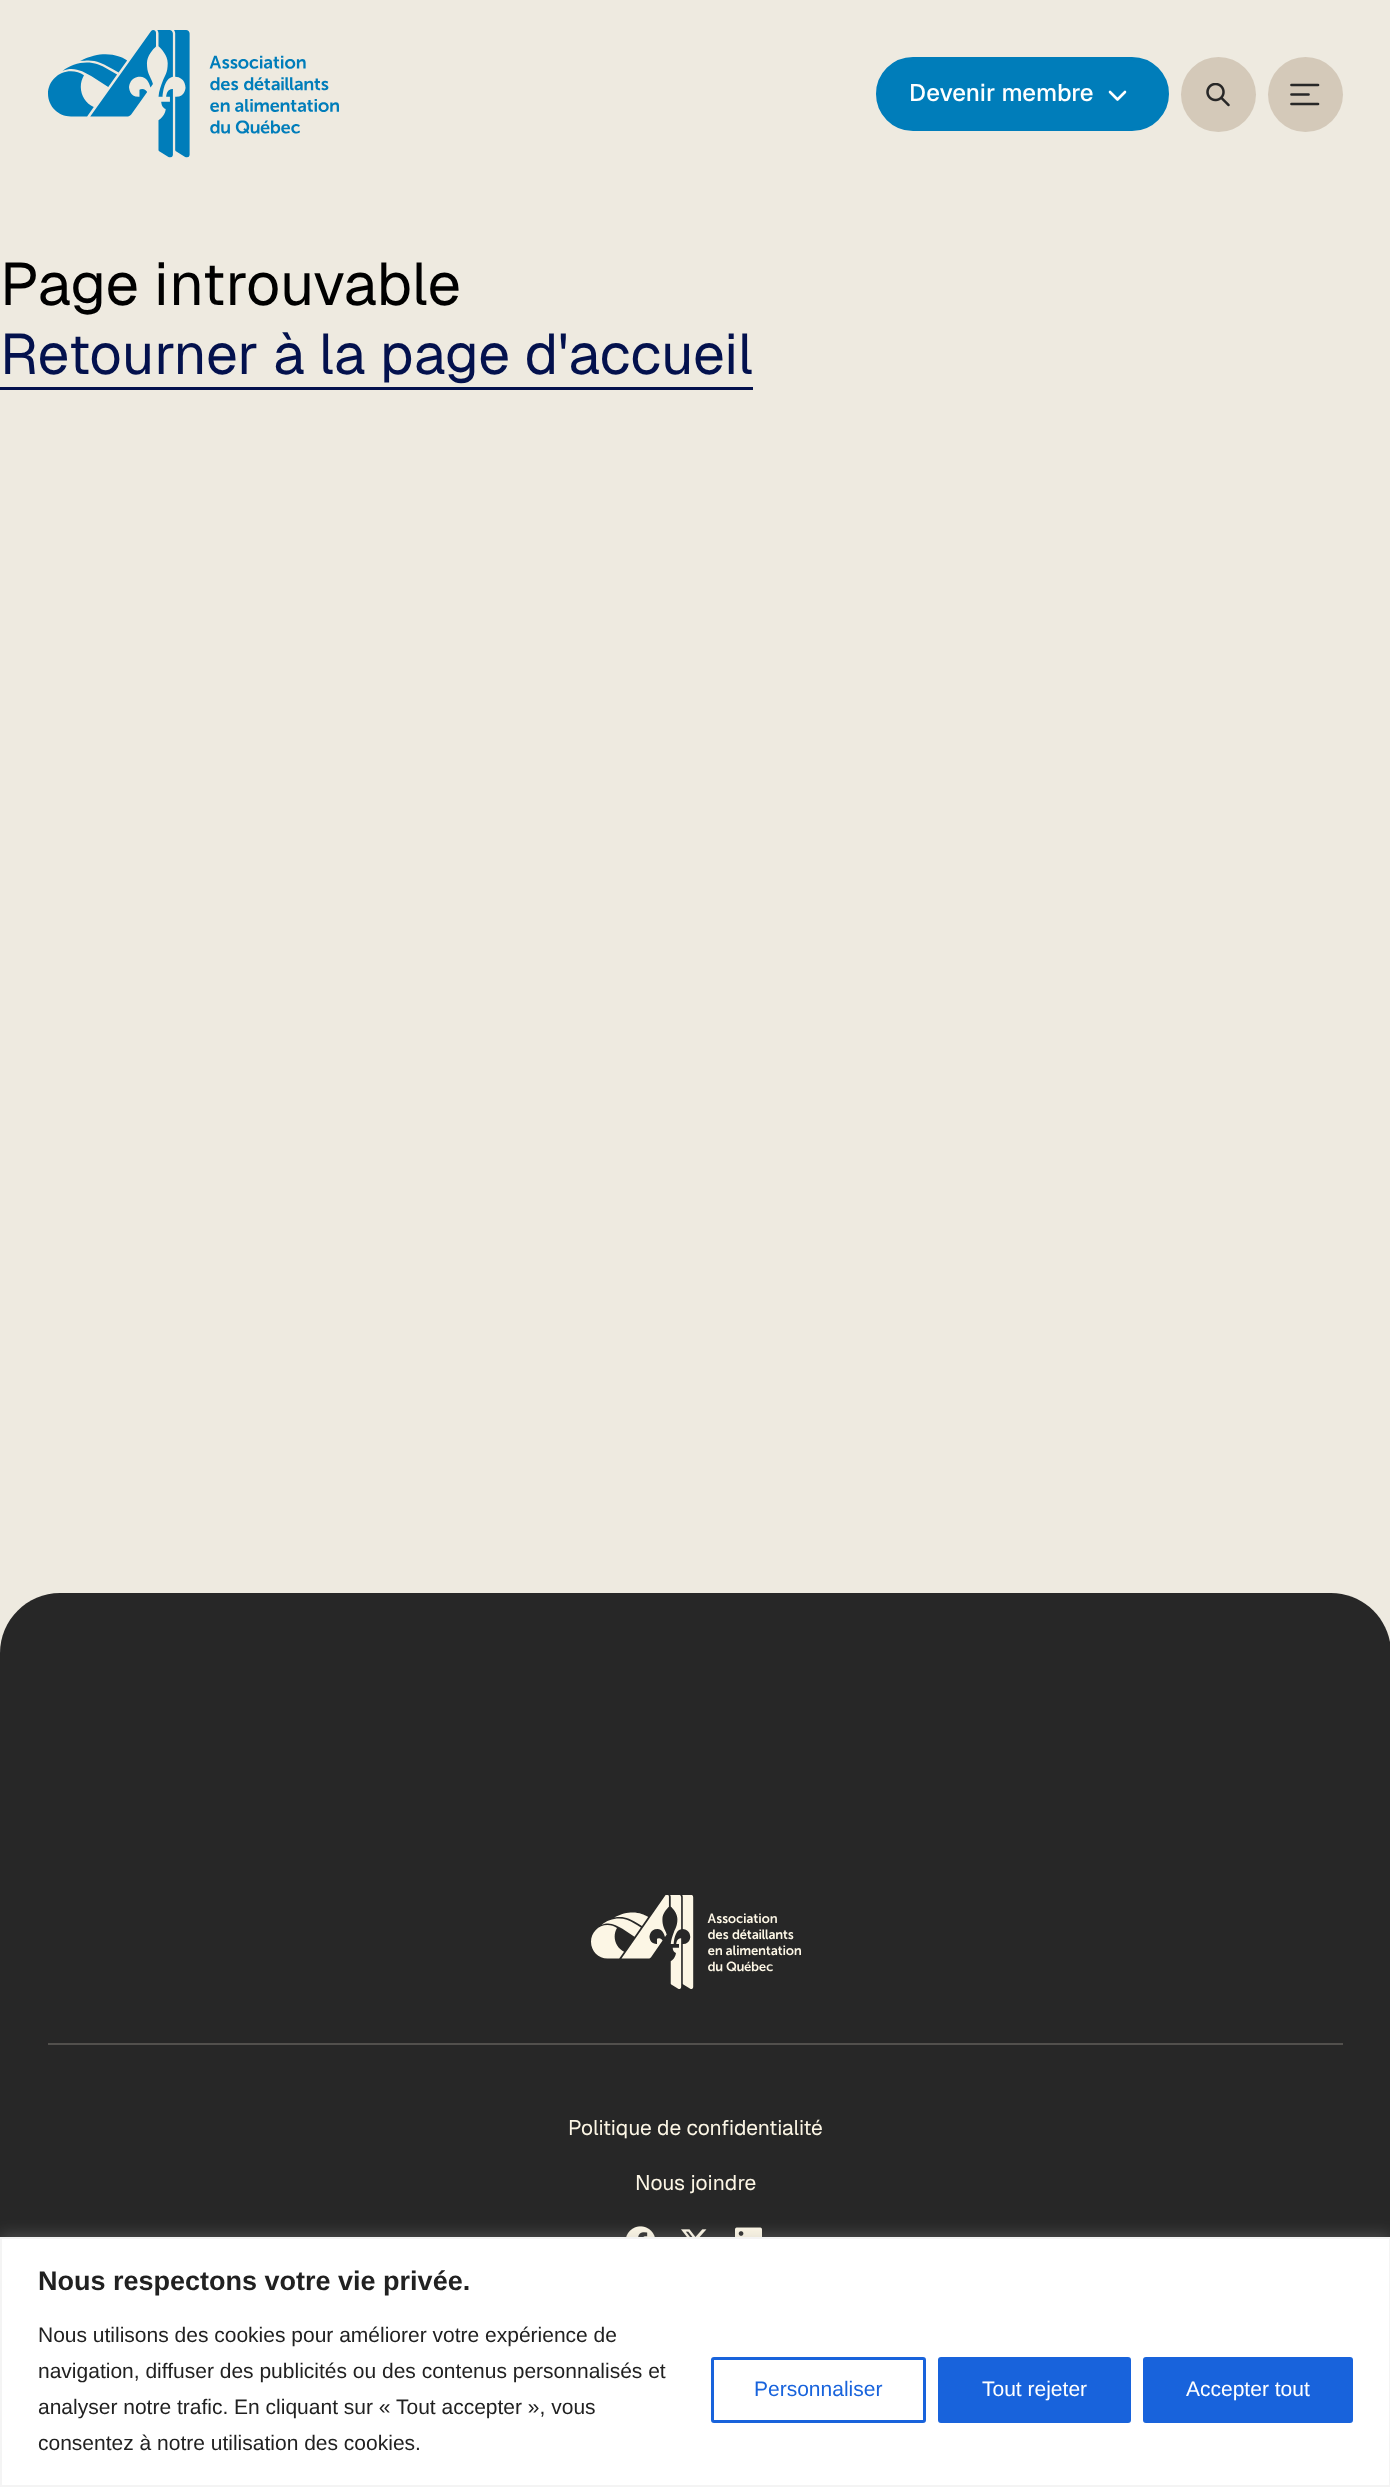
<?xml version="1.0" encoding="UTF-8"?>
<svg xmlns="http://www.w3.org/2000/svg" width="1390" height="2487">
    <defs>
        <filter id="blur1" x="-50%" y="-200%" width="200%" height="500%"><feGaussianBlur stdDeviation="7.5"/></filter>
    </defs>
    <rect width="100%" height="100%" fill="#EEEAE0"/>
    <image x="48" y="30" width="291" height="128" href="img_01.png"/>
    <rect x="877.5" y="58.5" width="290" height="71" rx="35.5" fill="#007DBA" stroke="#007DBA" stroke-width="3"/>
    <text x="909" y="101" font-family="Geist" font-size="24" font-weight="500" fill="#FFFFFF">Devenir membre</text>
    <path d="M 1110 92 L 1117.5 99.5 L 1125 92" fill="none" stroke="#FFFFFF" stroke-width="2.6" stroke-linecap="round" stroke-linejoin="round"/>
    <circle cx="1218.5" cy="94.5" r="37.5" fill="#D4C9B9"/>
    <image x="1206" y="83" width="24" height="24" href="img_02.png"/>
    <circle cx="1305.5" cy="94.5" r="37.5" fill="#D4C9B9"/>
    <path d="M 1291.5 104 H 1318 M 1291.5 94.5 H 1308.5 M 1291.5 85 H 1318" fill="none" stroke="#272727" stroke-width="2.7" stroke-linecap="round" stroke-linejoin="round"/>
    <text x="0" y="305" font-family="Geist" font-size="60" fill="#000000">Page introuvable</text>
    <text x="0" y="374" font-family="Geist" font-size="57" fill="#03114D">Retourner à la page d'accueil</text>
    <rect x="0" y="387" width="753" height="3" fill="#03114D"/>
    <path d="M 60 1593 H 1331 C 1364 1593 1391 1620 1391 1653 V 2487 H 0 V 1653 C 0 1620 27 1593 60 1593 Z" fill="#272727"/>
    <rect x="48" y="2043" width="1295" height="2" fill="#52504D"/>
    <image x="591" y="1895" width="210" height="94" href="img_03.png"/>
    <text x="568" y="2135" font-family="Geist" font-size="21" fill="#FCF6E5">Politique de confidentialité</text>
    <text x="635" y="2190" font-family="Geist" font-size="21" fill="#FCF6E5">Nous joindre</text>
    <image x="626" y="2226" width="29" height="11" href="img_04.png"/>
    <image x="681" y="2229" width="26" height="8" href="img_05.png"/>
    <image x="735" y="2227" width="27" height="10" href="img_06.png"/>
    <rect x="0" y="2235" width="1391" height="251" fill="#ACABAB" fill-opacity="0.3" filter="url(#blur1)"/>
    <rect x="1" y="2238" width="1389" height="248" fill="#FFFFFF" stroke="#F4F4F4" stroke-width="2"/>
    <text x="38" y="2290" font-family="Liberation Sans" font-size="27" font-weight="700" fill="#212121">Nous respectons votre vie privée.</text>
    <text font-family="Liberation Sans" font-size="21" fill="#212121">
        <tspan x="38" y="2342">Nous utilisons des cookies pour améliorer votre expérience de</tspan>
        <tspan x="38" y="2378">navigation, diffuser des publicités ou des contenus personnalisés et</tspan>
        <tspan x="38" y="2414">analyser notre trafic. En cliquant sur « Tout accepter », vous</tspan>
        <tspan x="38" y="2450">consentez à notre utilisation des cookies.</tspan>
    </text>
    <rect x="712.5" y="2358.5" width="212" height="63" rx="1.5" fill="none" stroke="#1863DC" stroke-width="3"/>
    <text x="754" y="2396" font-family="Liberation Sans" font-size="21" fill="#1863DC">Personnaliser</text>
    <rect x="939.5" y="2358.5" width="190" height="63" rx="1.5" fill="#1863DC" stroke="#1863DC" stroke-width="3"/>
    <text x="982" y="2396" font-family="Liberation Sans" font-size="21" fill="#FFFFFF">Tout rejeter</text>
    <rect x="1144.5" y="2358.5" width="207" height="63" rx="1.5" fill="#1863DC" stroke="#1863DC" stroke-width="3"/>
    <text x="1186" y="2396" font-family="Liberation Sans" font-size="21" fill="#FFFFFF">Accepter tout</text>
</svg>
